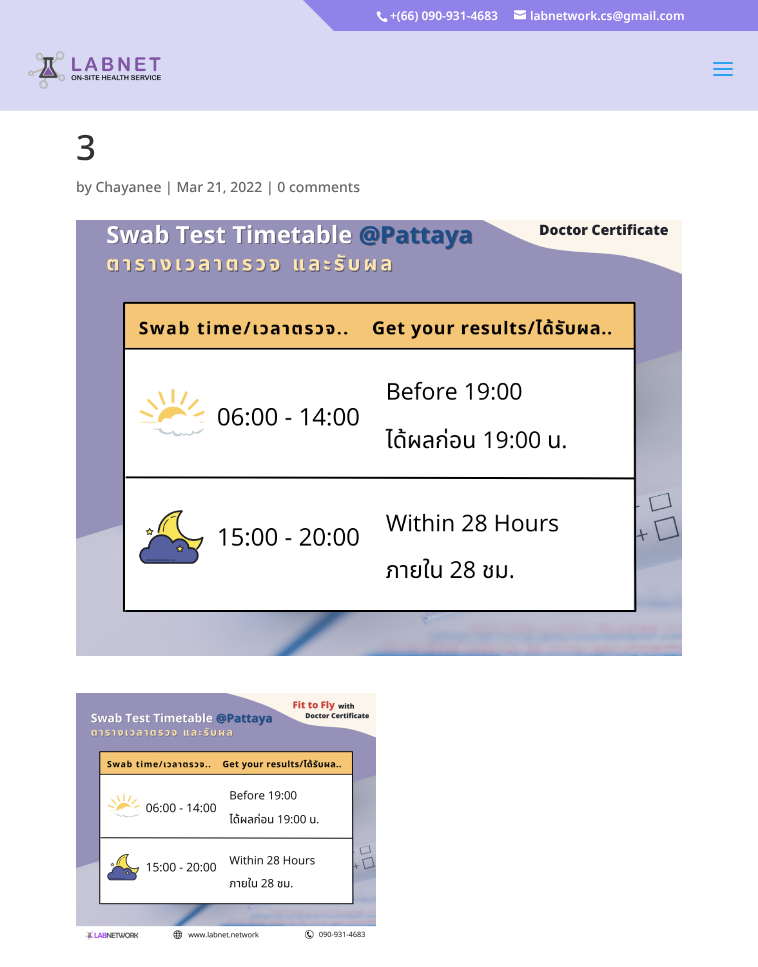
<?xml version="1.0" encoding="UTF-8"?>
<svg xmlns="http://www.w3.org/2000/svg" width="758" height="967">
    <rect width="100%" height="100%" fill="#FFFFFF"/>
    <rect x="0" y="110" width="758" height="1" fill="#E6E6E6"/>
    <rect x="0" y="0" width="758" height="110" fill="#D8D8F4"/>
    <image x="28" y="51" width="133" height="38" href="img_01.png"/>
    <image x="713" y="62" width="20" height="14" href="img_02.png"/>
    <image x="303" y="0" width="455" height="31" href="img_03.png"/>
    <image x="376" y="11" width="12" height="12" href="img_04.png"/>
    <text x="390" y="20" font-family="Noto Sans Thai" font-size="12" font-weight="600" fill="#FFFFFF">+(66) 090-931-4683</text>
    <image x="514" y="10" width="12" height="10" href="img_05.png"/>
    <text x="530" y="20" font-family="Noto Sans Thai" font-size="12" font-weight="600" fill="#FFFFFF">labnetwork.cs@gmail.com</text>
    <text x="76" y="160" font-family="Noto Sans Thai" font-size="35" font-weight="500" fill="#333333">3</text>
    <text x="76" y="192" font-family="Noto Sans Thai" font-size="14" font-weight="500" fill="#666666">by Chayanee | Mar 21, 2022 | 0 comments</text>
    <image x="76" y="220" width="606" height="436" href="img_06.png"/>
    <image x="76" y="693" width="300" height="247" href="img_07.png"/>
</svg>
